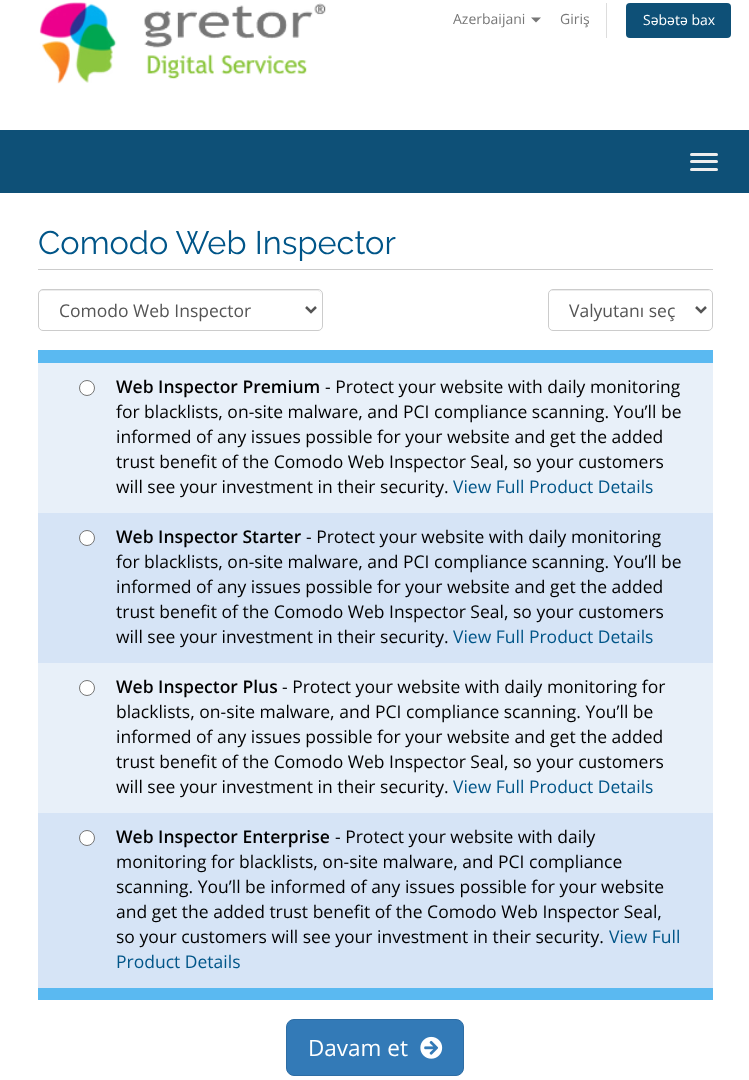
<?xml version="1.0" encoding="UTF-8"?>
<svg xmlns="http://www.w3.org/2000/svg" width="749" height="1080">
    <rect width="100%" height="100%" fill="#FFFFFF"/>
    <image x="39" y="2" width="287" height="82" href="img_01.png"/>
    <text x="453" y="24" font-family="Open Sans" font-size="14" fill="#777777">Azerbaijani</text>
    <path d="M 531 17.5 H 541 L 536 22.5 Z" fill="#777777"/>
    <text x="560" y="24" font-family="Open Sans" font-size="14" fill="#777777">Giriş</text>
    <rect x="606" y="3" width="1" height="35" fill="#DDDDDD"/>
    <rect x="626" y="3" width="105" height="35" rx="4" fill="#0E5077"/>
    <text x="643" y="25" font-family="Open Sans" font-size="14" fill="#FFFFFF">Səbətə bax</text>
    <rect x="0" y="130" width="749" height="63" fill="#0E5077"/>
    <rect x="690" y="153" width="28" height="3" rx="1.5" fill="#EEEEEE"/>
    <rect x="690" y="160" width="28" height="3" rx="1.5" fill="#EEEEEE"/>
    <rect x="690" y="168" width="28" height="3" rx="1.5" fill="#EEEEEE"/>
    <rect x="38" y="269" width="675" height="1" fill="#CCCCCC"/>
    <text x="38" y="254" font-family="Raleway" font-size="32.5" fill="#005588">Comodo Web Inspector</text>
    <path d="M 42 291 H 318 L 320 292 L 321 295 C 321 292 320 290 317 290 H 43 C 40 290 39 292 39 295 C 39 293 40 291 42 291 Z" fill="#ECECEC"/>
    <rect x="38.5" y="289.5" width="284" height="41" rx="4.5" fill="none" stroke="#CCCCCC"/>
    <path d="M 306 307 L 311 312 L 316 307" fill="none" stroke="#555555" stroke-width="2.5"/>
    <text x="59" y="317" font-family="Open Sans" font-size="17.5" fill="#555555">Comodo Web Inspector</text>
    <path d="M 552 291 H 708 C 710 291 711 293 711 295 C 711 293 710 291 708 290 H 552 C 550 291 549 293 549 295 C 549 293 550 291 552 291 Z" fill="#ECECEC"/>
    <rect x="548.5" y="289.5" width="164" height="41" rx="4.5" fill="none" stroke="#CCCCCC"/>
    <path d="M 696 307 L 701 312 L 706 307" fill="none" stroke="#555555" stroke-width="2.5"/>
    <text x="569" y="317" font-family="Open Sans" font-size="17.5" fill="#555555">Valyutanı seç</text>
    <rect x="38" y="350" width="675" height="13" fill="#5AB9F1"/>
    <rect x="38" y="988" width="675" height="12" fill="#5AB9F1"/>
    <rect x="38" y="363" width="675" height="150" fill="#E8F0F9"/>
    <circle cx="87" cy="388" r="7.5" fill="#FFFFFF" stroke="#767676"/>
    <text x="116" y="393" font-family="Open Sans" font-size="17.5" font-weight="600" fill="#000000">Web Inspector Premium</text>
    <text x="325" y="393" font-family="Open Sans" font-size="17.5" fill="#000000">- Protect your website with daily monitoring</text>
    <text font-family="Open Sans" font-size="17.5" fill="#000000">
        <tspan x="116" y="418">for blacklists, on-site malware, and PCI compliance scanning. You’ll be</tspan>
        <tspan x="116" y="443">informed of any issues possible for your website and get the added</tspan>
        <tspan x="116" y="468">trust benefit of the Comodo Web Inspector Seal, so your customers</tspan>
        <tspan x="116" y="493">will see your investment in their security.</tspan>
    </text>
    <text x="453" y="493" font-family="Open Sans" font-size="17.5" fill="#005588">View Full Product Details</text>
    <rect x="38" y="513" width="675" height="150" fill="#D6E4F6"/>
    <circle cx="87" cy="538" r="7.5" fill="#FFFFFF" stroke="#767676"/>
    <text x="116" y="543" font-family="Open Sans" font-size="17.5" font-weight="600" fill="#000000">Web Inspector Starter</text>
    <text x="306" y="543" font-family="Open Sans" font-size="17.5" fill="#000000">- Protect your website with daily monitoring</text>
    <text font-family="Open Sans" font-size="17.5" fill="#000000">
        <tspan x="116" y="568">for blacklists, on-site malware, and PCI compliance scanning. You’ll be</tspan>
        <tspan x="116" y="593">informed of any issues possible for your website and get the added</tspan>
        <tspan x="116" y="618">trust benefit of the Comodo Web Inspector Seal, so your customers</tspan>
        <tspan x="116" y="643">will see your investment in their security.</tspan>
    </text>
    <text x="453" y="643" font-family="Open Sans" font-size="17.5" fill="#005588">View Full Product Details</text>
    <rect x="38" y="663" width="675" height="150" fill="#E8F0F9"/>
    <circle cx="87" cy="688" r="7.5" fill="#FFFFFF" stroke="#767676"/>
    <text x="116" y="693" font-family="Open Sans" font-size="17.5" font-weight="600" fill="#000000">Web Inspector Plus</text>
    <text x="282" y="693" font-family="Open Sans" font-size="17.5" fill="#000000">- Protect your website with daily monitoring for</text>
    <text font-family="Open Sans" font-size="17.5" fill="#000000">
        <tspan x="116" y="718">blacklists, on-site malware, and PCI compliance scanning. You’ll be</tspan>
        <tspan x="116" y="743">informed of any issues possible for your website and get the added</tspan>
        <tspan x="116" y="768">trust benefit of the Comodo Web Inspector Seal, so your customers</tspan>
        <tspan x="116" y="793">will see your investment in their security.</tspan>
    </text>
    <text x="453" y="793" font-family="Open Sans" font-size="17.5" fill="#005588">View Full Product Details</text>
    <rect x="38" y="813" width="675" height="175" fill="#D6E4F6"/>
    <circle cx="87" cy="838" r="7.5" fill="#FFFFFF" stroke="#767676"/>
    <text x="116" y="843" font-family="Open Sans" font-size="17.5" font-weight="600" fill="#000000">Web Inspector Enterprise</text>
    <text x="335" y="843" font-family="Open Sans" font-size="17.5" fill="#000000">- Protect your website with daily</text>
    <text font-family="Open Sans" font-size="17.5" fill="#000000">
        <tspan x="116" y="868">monitoring for blacklists, on-site malware, and PCI compliance</tspan>
        <tspan x="116" y="893">scanning. You’ll be informed of any issues possible for your website</tspan>
        <tspan x="116" y="918">and get the added trust benefit of the Comodo Web Inspector Seal,</tspan>
        <tspan x="116" y="943">so your customers will see your investment in their security.</tspan>
    </text>
    <text x="609" y="943" font-family="Open Sans" font-size="17.5" fill="#005588">View Full</text>
    <text x="116" y="968" font-family="Open Sans" font-size="17.5" fill="#005588">Product Details</text>
    <rect x="286.5" y="1019.5" width="177" height="56" rx="7.5" fill="#337AB7" stroke="#2E6DA4"/>
    <text x="308" y="1056" font-family="Open Sans" font-size="22.5" fill="#FFFFFF">Davam et</text>
    <image x="420" y="1036" width="23" height="23" href="img_02.png"/>
</svg>
